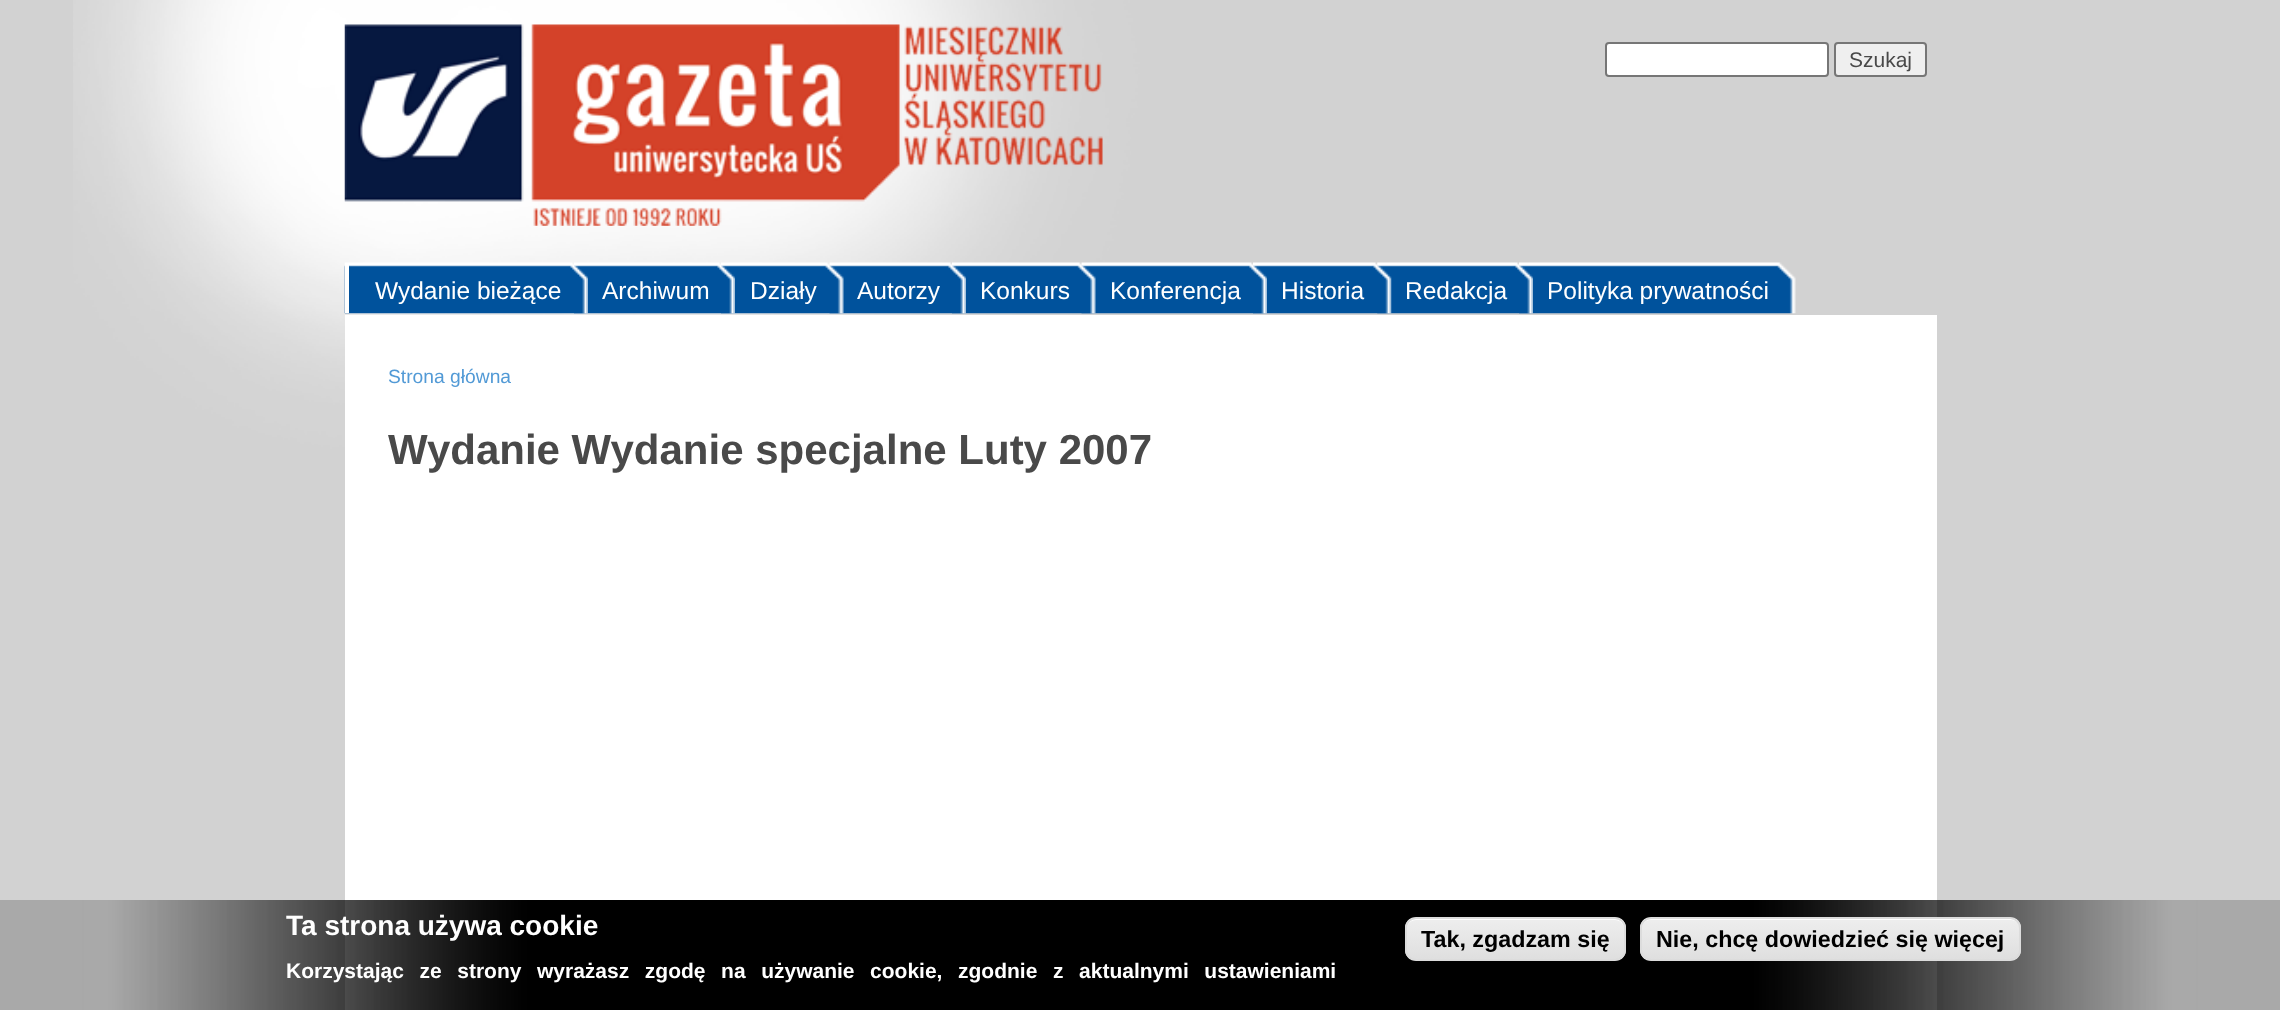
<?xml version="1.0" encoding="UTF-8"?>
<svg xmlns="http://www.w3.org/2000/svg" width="2280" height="1010">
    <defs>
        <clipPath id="clip1"><rect x="1405" y="917" width="221" height="44" rx="11"/></clipPath>
        <linearGradient id="g1" gradientUnits="userSpaceOnUse" x1="1407" y1="919" x2="1407" y2="959"><stop offset="0.05" stop-color="#EDEDED"/><stop offset="1" stop-color="#DFDFDF"/></linearGradient>
        <clipPath id="clip2"><rect x="1640" y="917" width="381" height="44" rx="11"/></clipPath>
        <linearGradient id="g2" gradientUnits="userSpaceOnUse" x1="1642" y1="919" x2="1642" y2="959"><stop offset="0.05" stop-color="#EDEDED"/><stop offset="1" stop-color="#DFDFDF"/></linearGradient>
    </defs>
    <rect width="100%" height="100%" fill="#D2D2D2"/>
    <image x="73" y="0" width="1140" height="511" href="img_01.png"/>
    <image x="344" y="24" width="759" height="202" href="img_02.png"/>
    <rect x="1606" y="43" width="222" height="33" rx="3" fill="#FFFFFF" stroke="#767676" stroke-width="2"/>
    <rect x="1835" y="43" width="91" height="33" rx="3" fill="#EFEFEF" stroke="#767676" stroke-width="2"/>
    <text x="1849" y="67" font-family="Liberation Sans" font-size="21" fill="#494949">Szukaj</text>
    <image x="1519" y="262" width="277" height="52" href="img_11.png"/>
    <image x="1377" y="262" width="156" height="52" href="img_10.png"/>
    <image x="1253" y="262" width="139" height="52" href="img_09.png"/>
    <image x="1081" y="262" width="186" height="52" href="img_08.png"/>
    <image x="952" y="262" width="144" height="52" href="img_07.png"/>
    <image x="829" y="262" width="137" height="52" href="img_06.png"/>
    <image x="721" y="262" width="123" height="52" href="img_05.png"/>
    <image x="574" y="262" width="161" height="52" href="img_04.png"/>
    <image x="344" y="262" width="244" height="52" href="img_03.png"/>
    <rect x="345" y="263" width="4" height="50" fill="#FFFFFF"/>
    <text x="375" y="299" font-family="Liberation Sans" font-size="24.5" fill="#FFFFFF">Wydanie bieżące</text>
    <text x="602" y="299" font-family="Liberation Sans" font-size="24.5" fill="#FFFFFF">Archiwum</text>
    <text x="750" y="299" font-family="Liberation Sans" font-size="24.5" fill="#FFFFFF">Działy</text>
    <text x="857" y="299" font-family="Liberation Sans" font-size="24.5" fill="#FFFFFF">Autorzy</text>
    <text x="980" y="299" font-family="Liberation Sans" font-size="24.5" fill="#FFFFFF">Konkurs</text>
    <text x="1110" y="299" font-family="Liberation Sans" font-size="24.5" fill="#FFFFFF">Konferencja</text>
    <text x="1281" y="299" font-family="Liberation Sans" font-size="24.5" fill="#FFFFFF">Historia</text>
    <text x="1405" y="299" font-family="Liberation Sans" font-size="24.5" fill="#FFFFFF">Redakcja</text>
    <text x="1547" y="299" font-family="Liberation Sans" font-size="24.5" fill="#FFFFFF">Polityka prywatności</text>
    <rect x="345" y="315" width="1592" height="695" fill="#FFFFFF"/>
    <text x="388" y="383" font-family="Liberation Sans" font-size="19.25" fill="#529AD6">Strona główna</text>
    <text x="388" y="464" font-family="Liberation Sans" font-size="42" font-weight="700" fill="#494949">Wydanie Wydanie specjalne Luty 2007</text>
    <image x="0" y="900" width="2280" height="110" href="img_12.png"/>
    <text x="286" y="935" font-family="Liberation Sans" font-size="28" font-weight="700" fill="#FFFFFF">Ta strona używa cookie</text>
    <text x="286" y="978" word-spacing="9.75" font-family="Liberation Sans" font-size="21" font-weight="700" fill="#FFFFFF">Korzystając ze strony wyrażasz zgodę na używanie cookie, zgodnie z aktualnymi ustawieniami</text>
    <g clip-path="url(#clip1)">
        <rect x="1405" y="919" width="221" height="40" fill="url(#g1)"/>
    </g>
    <path d="M 1416 920 H 1615 C 1620 920 1624 924 1624 929 V 928 C 1624 923 1620 919 1615 919 H 1416 C 1411 919 1407 923 1407 928 V 929 C 1407 924 1411 920 1416 920 Z" fill="#FFFFFF"/>
    <rect x="1406" y="918" width="219" height="42" rx="10" fill="none" stroke="#DCDCDC" stroke-width="2"/>
    <text x="1421" y="947" font-family="Liberation Sans" font-size="23.3" font-weight="700" fill="#000000">Tak, zgadzam się</text>
    <g clip-path="url(#clip2)">
        <rect x="1640" y="919" width="381" height="40" fill="url(#g2)"/>
    </g>
    <path d="M 1650 920 H 2011 C 2016 920 2020 924 2020 929 V 928 C 2020 923 2016 919 2011 919 H 1651 C 1646 919 1642 923 1642 928 V 929 C 1642 924 1645 920 1650 920 Z" fill="#FFFFFF"/>
    <rect x="1641" y="918" width="379" height="42" rx="10" fill="none" stroke="#DCDCDC" stroke-width="2"/>
    <text x="1656" y="947" font-family="Liberation Sans" font-size="23.3" font-weight="700" fill="#000000">Nie, chcę dowiedzieć się więcej</text>
</svg>
